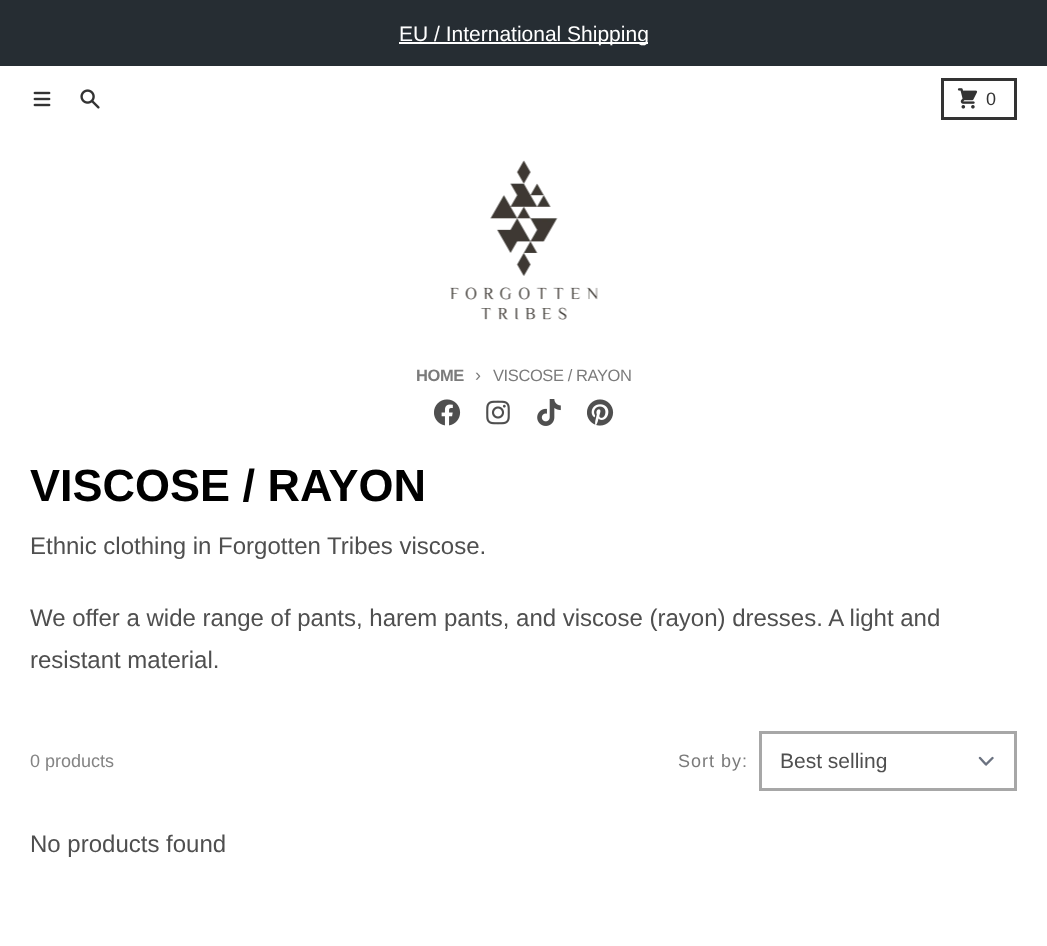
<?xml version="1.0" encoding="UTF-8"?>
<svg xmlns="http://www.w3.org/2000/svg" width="1047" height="946">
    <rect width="100%" height="100%" fill="#FFFFFF"/>
    <rect x="0" y="0" width="1047" height="66" fill="#262D33"/>
    <rect x="399" y="42" width="249" height="2" fill="#FFFFFF"/>
    <text x="399" y="41" font-family="Liberation Sans" font-size="21" fill="#FFFFFF">EU / International Shipping</text>
    <image x="33" y="91" width="18" height="16" href="img_01.png"/>
    <image x="80" y="89" width="20" height="20" href="img_02.png"/>
    <rect x="942.5" y="79.5" width="73" height="39" fill="none" stroke="#333333" stroke-width="3"/>
    <image x="957" y="88" width="21" height="21" href="img_03.png"/>
    <text x="986" y="105" font-family="Liberation Sans" font-size="18" fill="#333333">0</text>
    <image x="450" y="160" width="148" height="160" href="img_04.png"/>
    <text x="416" y="381" font-family="Liberation Sans" font-size="16.5" font-weight="700" letter-spacing="-0.4" fill="#7B7B7B">HOME</text>
    <text x="475" y="381" font-family="Liberation Sans" font-size="18" letter-spacing="-0.4" fill="#7B7B7B">›</text>
    <text x="493" y="381" font-family="Liberation Sans" font-size="16.5" letter-spacing="-0.4" fill="#7B7B7B">VISCOSE / RAYON</text>
    <image x="434" y="399" width="27" height="27" href="img_05.png"/>
    <image x="486" y="400" width="24" height="25" href="img_06.png"/>
    <image x="537" y="399" width="24" height="27" href="img_07.png"/>
    <image x="587" y="399" width="27" height="27" href="img_08.png"/>
    <text x="30" y="501" font-family="Liberation Sans" font-size="45" font-weight="700" fill="#000000">VISCOSE / RAYON</text>
    <text x="30" y="554" font-family="Liberation Sans" font-size="24" fill="#4F4F4F">Ethnic clothing in Forgotten Tribes viscose.</text>
    <text font-family="Liberation Sans" font-size="24" fill="#4F4F4F">
        <tspan x="30" y="626">We offer a wide range of pants, harem pants, and viscose (rayon) dresses. A light and</tspan>
        <tspan x="30" y="668">resistant material.</tspan>
    </text>
    <text x="30" y="767" font-family="Liberation Sans" font-size="18" fill="#848484">0 products</text>
    <text x="678" y="767" font-family="Liberation Sans" font-size="18" letter-spacing="1" fill="#7B7B7B">Sort by:</text>
    <path d="M 980 758 L 986 764.5 L 992.5 758" fill="none" stroke="#6B7280" stroke-width="2.4" stroke-linecap="round" stroke-linejoin="round"/>
    <rect x="760.5" y="732.5" width="255" height="57" fill="none" stroke="#A7A7A7" stroke-width="3"/>
    <text x="780" y="768" font-family="Liberation Sans" font-size="21" fill="#4F4F4F">Best selling</text>
    <text x="30" y="852" font-family="Liberation Sans" font-size="24" fill="#4F4F4F">No products found</text>
</svg>
